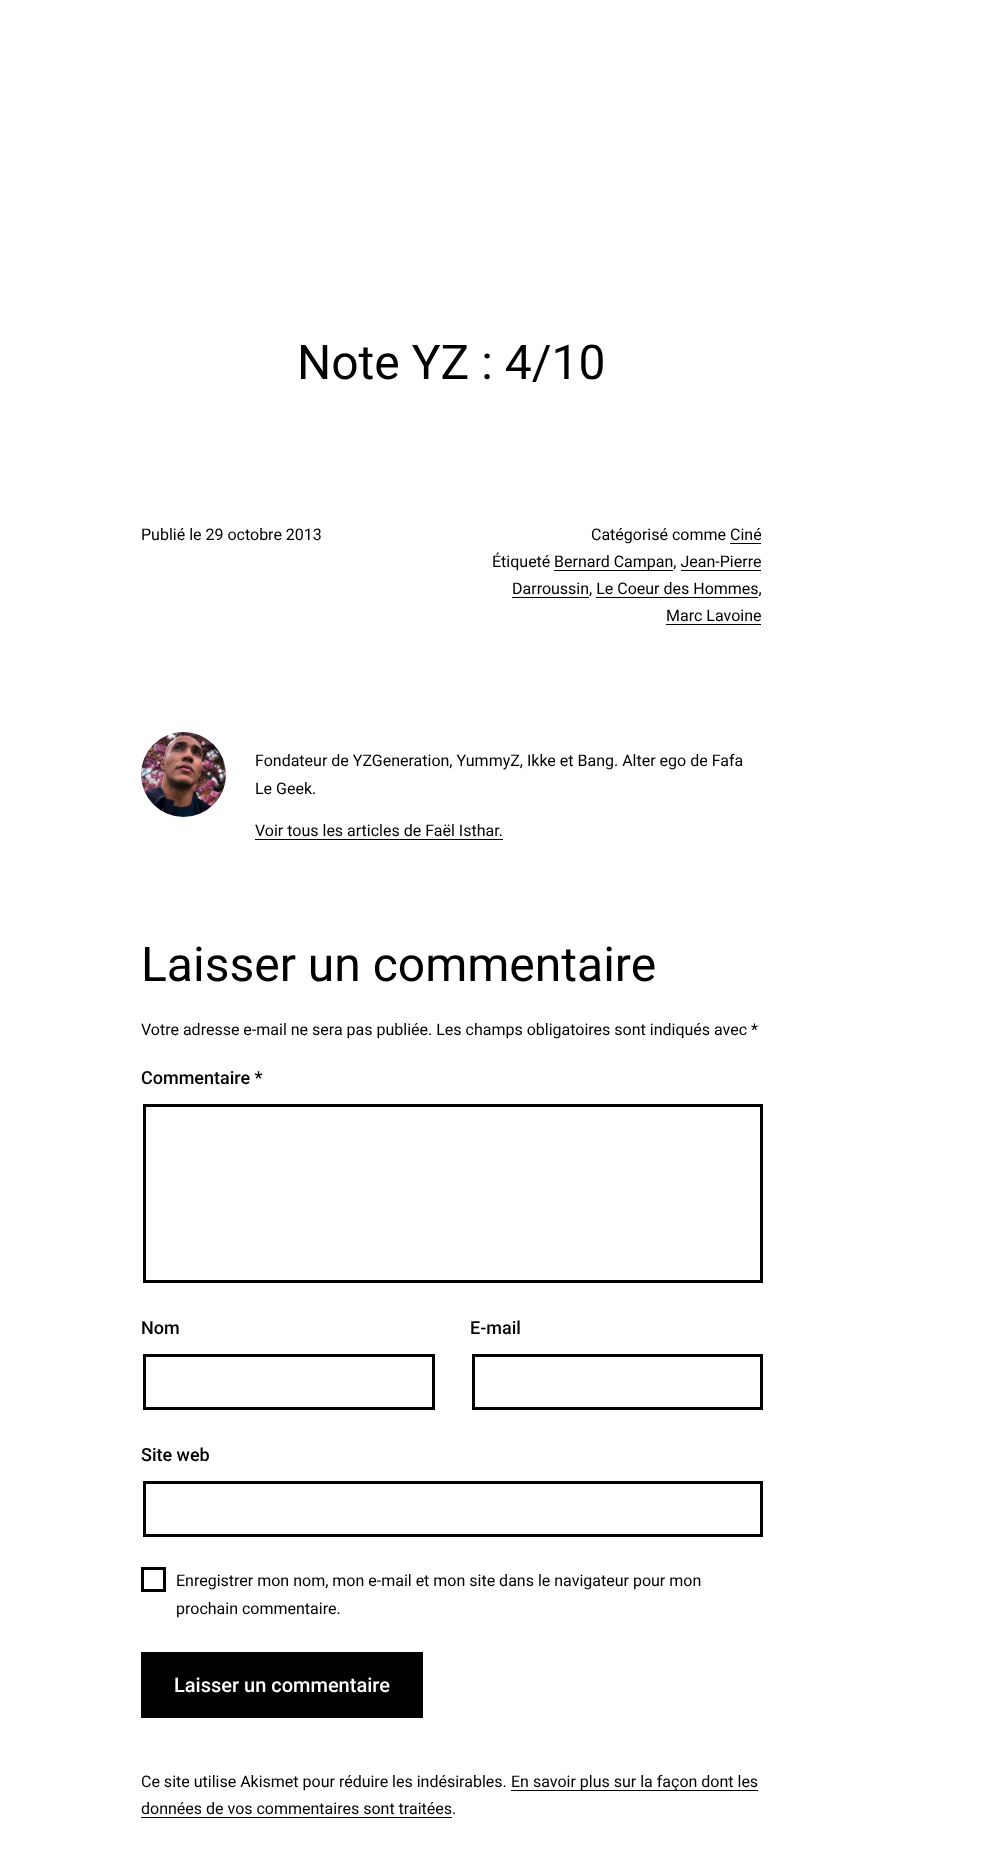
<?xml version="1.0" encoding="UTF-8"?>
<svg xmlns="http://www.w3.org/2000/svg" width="981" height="1862">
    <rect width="100%" height="100%" fill="#FFFFFF"/>
    <text x="297" y="379" font-family="Roboto" font-size="48" fill="#000000">Note YZ : 4/10</text>
    <text x="141" y="540" font-family="Roboto" font-size="16" fill="#000000">Publié le 29 octobre 2013</text>
    <text x="591" y="540" font-family="Roboto" font-size="16" fill="#000000">Catégorisé comme Ciné</text>
    <rect x="730" y="543" width="31" height="1" fill="#000000"/>
    <text x="492" y="567" font-family="Roboto" font-size="16" fill="#000000">Étiqueté</text>
    <rect x="554" y="570" width="119" height="1" fill="#000000"/>
    <text x="554" y="567" font-family="Roboto" font-size="16" fill="#000000">Bernard Campan, Jean-Pierre</text>
    <text x="512" y="594" font-family="Roboto" font-size="16" fill="#000000">Darroussin, Le Coeur des Hommes,</text>
    <rect x="681" y="570" width="80" height="1" fill="#000000"/>
    <rect x="512" y="597" width="77" height="1" fill="#000000"/>
    <rect x="596" y="597" width="162" height="1" fill="#000000"/>
    <text x="666" y="621" font-family="Roboto" font-size="16" fill="#000000">Marc Lavoine</text>
    <rect x="666" y="624" width="95" height="1" fill="#000000"/>
    <image x="141" y="732" width="85" height="85" href="img_01.png"/>
    <text font-family="Roboto" font-size="16" fill="#000000">
        <tspan x="255" y="766">Fondateur de YZGeneration, YummyZ, Ikke et Bang. Alter ego de Fafa</tspan>
        <tspan x="255" y="794">Le Geek.</tspan>
    </text>
    <text x="255" y="836" font-family="Roboto" font-size="16" fill="#000000">Voir tous les articles de Faël Isthar.</text>
    <rect x="255" y="839" width="248" height="1" fill="#000000"/>
    <text x="141" y="981" font-family="Roboto" font-size="48" fill="#000000">Laisser un commentaire</text>
    <text x="141" y="1035" font-family="Roboto" font-size="16" fill="#000000">Votre adresse e-mail ne sera pas publiée. Les champs obligatoires sont indiqués avec *</text>
    <text x="141" y="1084" font-family="Roboto" font-size="18" font-weight="500" fill="#000000">Commentaire *</text>
    <rect x="144.5" y="1105.5" width="617" height="176" fill="none" stroke="#000000" stroke-width="3"/>
    <text x="141" y="1334" font-family="Roboto" font-size="18" font-weight="500" fill="#000000">Nom</text>
    <rect x="144.5" y="1355.5" width="289" height="53" fill="none" stroke="#000000" stroke-width="3"/>
    <text x="470" y="1334" font-family="Roboto" font-size="18" font-weight="500" fill="#000000">E-mail</text>
    <rect x="473.5" y="1355.5" width="288" height="53" fill="none" stroke="#000000" stroke-width="3"/>
    <text x="141" y="1461" font-family="Roboto" font-size="18" font-weight="500" fill="#000000">Site web</text>
    <rect x="144.5" y="1482.5" width="617" height="53" fill="none" stroke="#000000" stroke-width="3"/>
    <rect x="142.5" y="1568.5" width="22" height="22" fill="none" stroke="#000000" stroke-width="3"/>
    <text font-family="Roboto" font-size="16" fill="#000000">
        <tspan x="176" y="1586">Enregistrer mon nom, mon e-mail et mon site dans le navigateur pour mon</tspan>
        <tspan x="176" y="1614">prochain commentaire.</tspan>
    </text>
    <rect x="141" y="1652" width="282" height="66" fill="#000000"/>
    <text x="174" y="1692" font-family="Roboto" font-size="20" font-weight="500" fill="#FFFFFF">Laisser un commentaire</text>
    <text x="141" y="1787" font-family="Roboto" font-size="16" fill="#000000">Ce site utilise Akismet pour réduire les indésirables.</text>
    <rect x="511" y="1790" width="247" height="1" fill="#000000"/>
    <text x="511" y="1787" font-family="Roboto" font-size="16" fill="#000000">En savoir plus sur la façon dont les</text>
    <text x="141" y="1814" font-family="Roboto" font-size="16" fill="#000000">données de vos commentaires sont traitées.</text>
    <rect x="141" y="1817" width="311" height="1" fill="#000000"/>
</svg>
